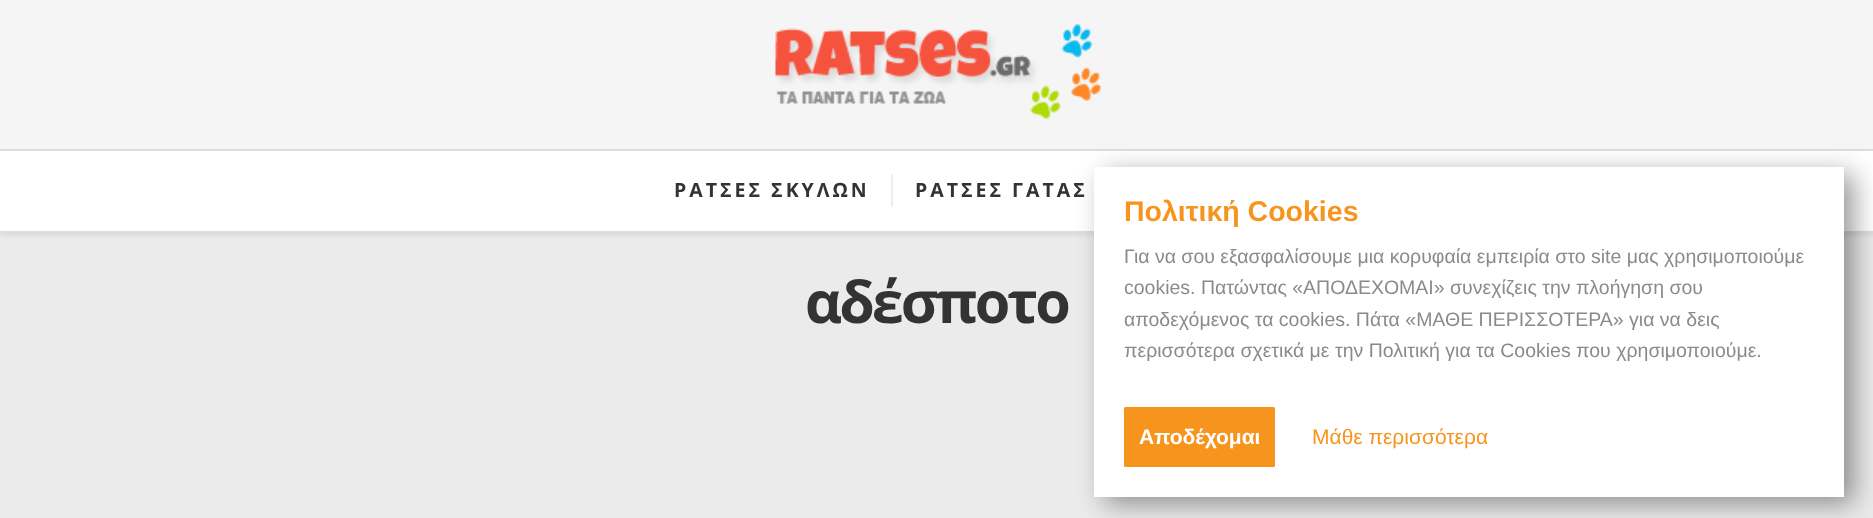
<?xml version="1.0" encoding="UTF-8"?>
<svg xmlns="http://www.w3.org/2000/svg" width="1873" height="518">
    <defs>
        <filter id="blur1" x="-50%" y="-200%" width="200%" height="500%"><feGaussianBlur stdDeviation="1.5"/></filter>
        <filter id="blur2" x="-50%" y="-200%" width="200%" height="500%"><feGaussianBlur stdDeviation="13.5"/></filter>
    </defs>
    <rect width="100%" height="100%" fill="#ECEBEB"/>
    <rect x="0" y="0" width="1873" height="149" fill="#F6F5F5"/>
    <image x="775" y="24" width="326" height="95" href="img_01.png"/>
    <rect x="0" y="152" width="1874" height="84" fill="#646464" fill-opacity="0.1" filter="url(#blur1)"/>
    <rect x="0" y="151" width="1873" height="80" fill="#FFFFFF"/>
    <rect x="0" y="149" width="1873" height="2" fill="#DDDDDD"/>
    <rect x="0" y="231" width="1873" height="2" fill="#DDDDDD"/>
    <text x="674" y="197" font-family="Open Sans" font-size="19.5" font-weight="700" letter-spacing="3" fill="#333333">ΡΑΤΣΕΣ ΣΚΥΛΩΝ</text>
    <rect x="891" y="174" width="2" height="33" fill="#EEEEEE"/>
    <text x="915" y="197" font-family="Open Sans" font-size="19.5" font-weight="700" letter-spacing="3" fill="#333333">ΡΑΤΣΕΣ ΓΑΤΑΣ</text>
    <text x="805" y="323" font-family="Open Sans" font-size="57.5" font-weight="700" letter-spacing="-3" fill="#333333">αδέσποτο</text>
    <rect x="1104" y="174" width="750" height="330" fill="#000000" fill-opacity="0.4" filter="url(#blur2)"/>
    <rect x="1094" y="167" width="750" height="330" fill="#FFFFFF"/>
    <text x="1124" y="221" font-family="Liberation Sans" font-size="28.5" font-weight="700" fill="#F7941E">Πολιτική Cookies</text>
    <text font-family="Liberation Sans" font-size="19.5" fill="#888B8D">
        <tspan x="1124" y="263">Για να σου εξασφαλίσουμε μια κορυφαία εμπειρία στο site μας χρησιμοποιούμε</tspan>
        <tspan x="1124" y="294">cookies. Πατώντας «ΑΠΟΔΕΧΟΜΑΙ» συνεχίζεις την πλοήγηση σου</tspan>
        <tspan x="1124" y="326">αποδεχόμενος τα cookies. Πάτα «ΜΑΘΕ ΠΕΡΙΣΣΟΤΕΡΑ» για να δεις</tspan>
        <tspan x="1124" y="357">περισσότερα σχετικά με την Πολιτική για τα Cookies που χρησιμοποιούμε.</tspan>
    </text>
    <rect x="1124" y="407" width="151" height="60" rx="1.5" fill="#F7941E"/>
    <text x="1139" y="444" font-family="Liberation Sans" font-size="21" font-weight="700" fill="#FFFFFF">Αποδέχομαι</text>
    <text x="1312" y="444" font-family="Liberation Sans" font-size="21" fill="#F7941E">Μάθε περισσότερα</text>
</svg>
